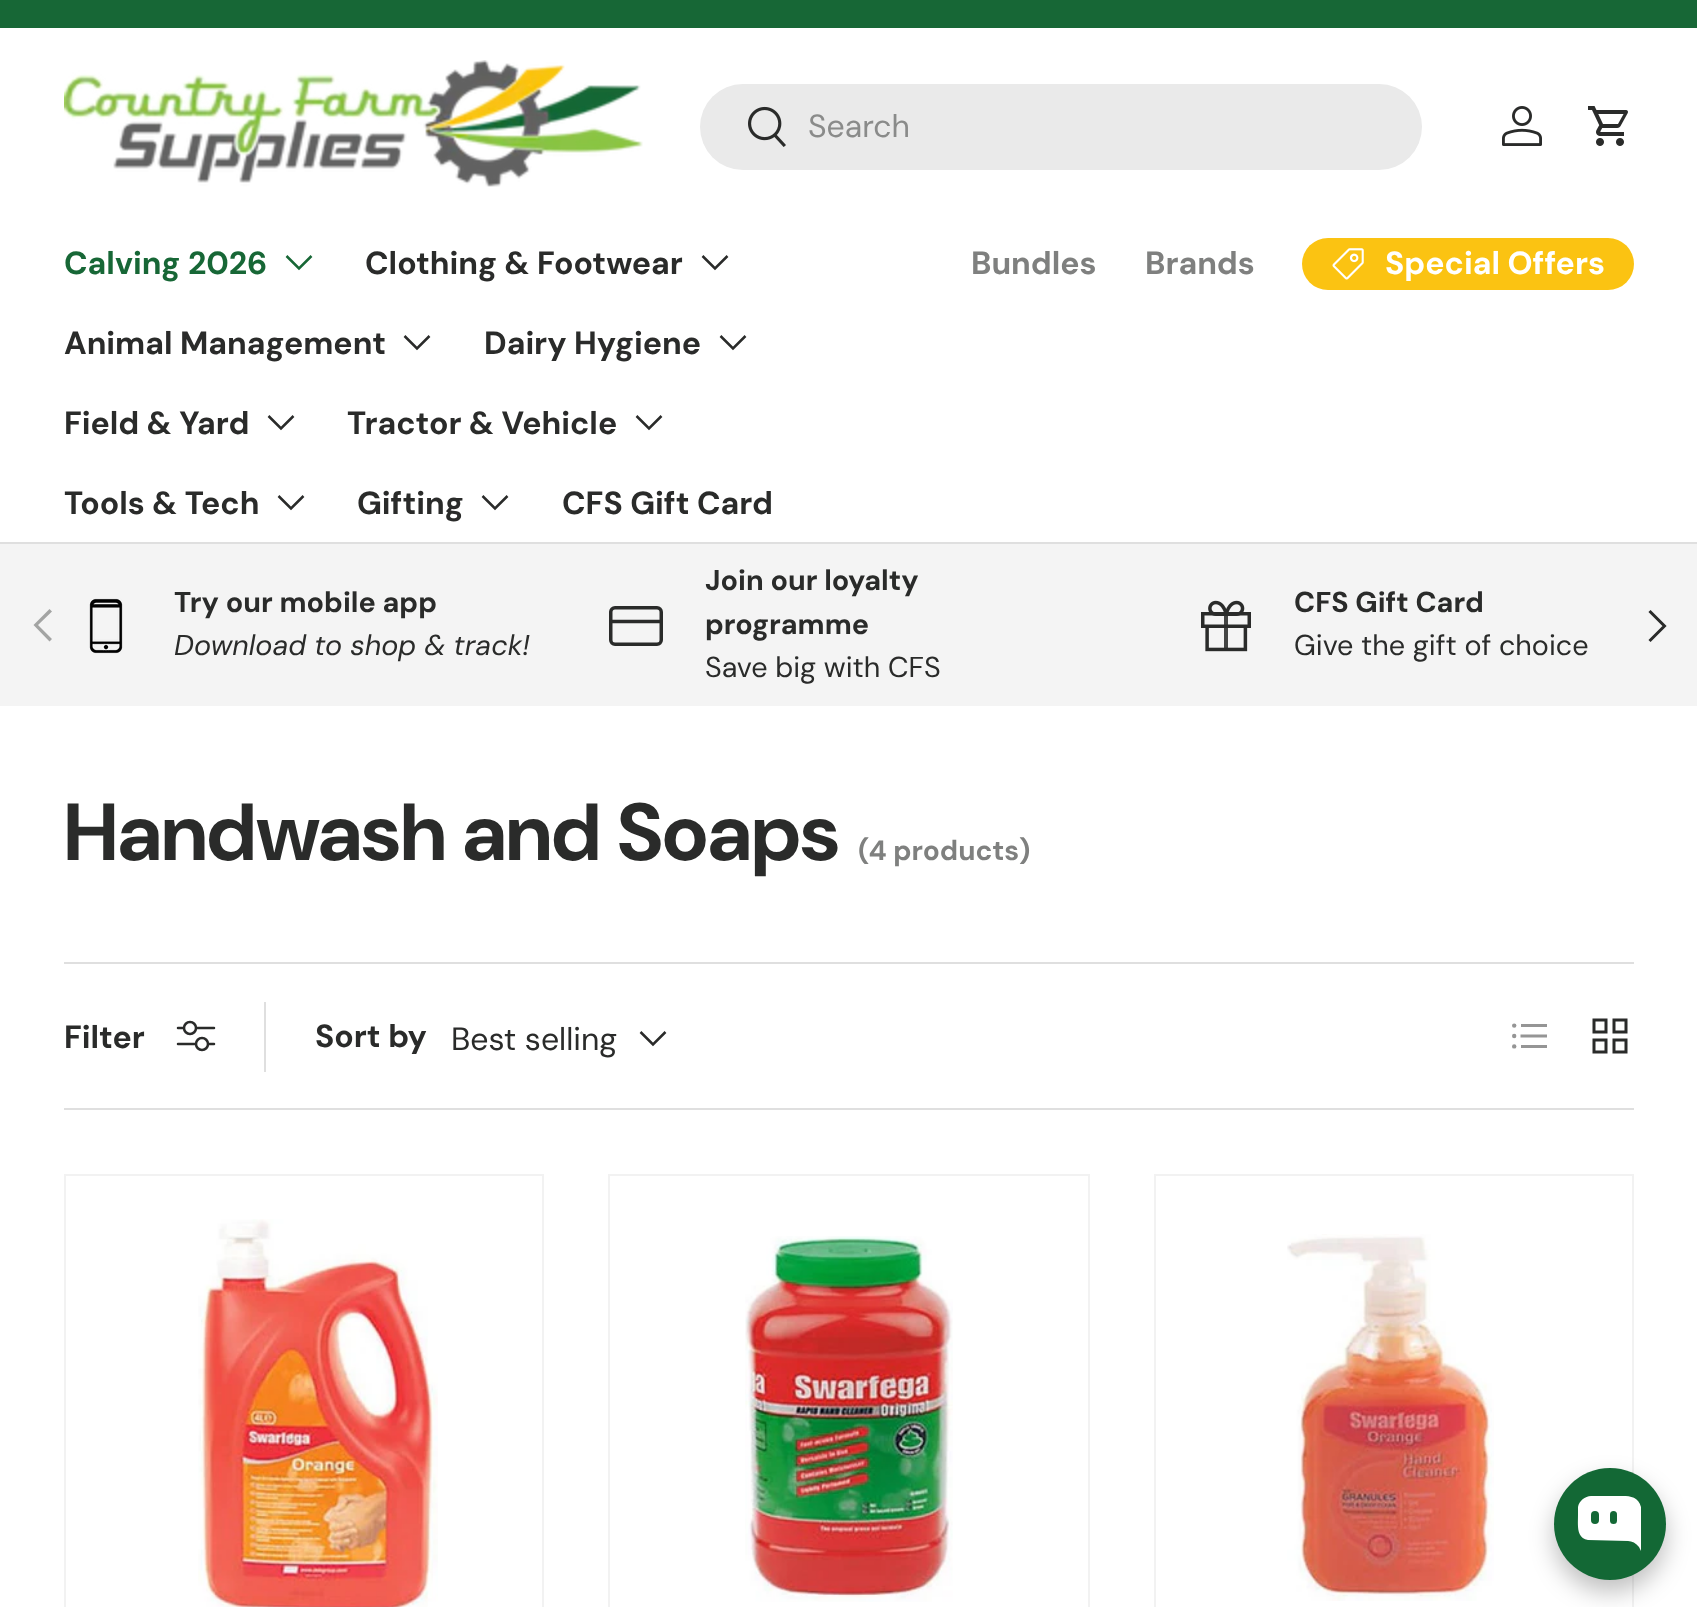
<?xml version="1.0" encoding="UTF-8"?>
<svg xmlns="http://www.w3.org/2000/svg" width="1697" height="1607">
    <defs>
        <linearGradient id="g1" gradientUnits="userSpaceOnUse" x1="661" y1="146" x2="1611" y2="382"><stop offset="0.6" stop-color="#FCD045"/><stop offset="0.6" stop-color="#FBC312"/><stop offset="1" stop-color="#FBC312"/></linearGradient>
        <filter id="blur1" x="-50%" y="-200%" width="200%" height="500%"><feGaussianBlur stdDeviation="12"/></filter>
    </defs>
    <rect width="100%" height="100%" fill="#FFFFFF"/>
    <rect x="0" y="0" width="1697" height="28" fill="#176736"/>
    <rect x="0" y="542" width="1697" height="2" fill="#DFDFDF"/>
    <image x="64" y="60" width="579" height="127" href="img_01.png"/>
    <rect x="700" y="84" width="722" height="86" rx="43" fill="#EAEAEA"/>
    <image x="748" y="106" width="38" height="41" href="img_02.png"/>
    <text x="808" y="137" font-family="'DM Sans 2'" font-size="32" fill="#8A8B8A">Search</text>
    <image x="1502" y="106" width="40" height="40" href="img_03.png"/>
    <image x="1588" y="106" width="40" height="40" href="img_04.png"/>
    <text x="64" y="274" font-family="'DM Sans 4'" font-size="32" font-weight="700" fill="#176736">Calving 2026</text>
    <path d="M 311.5 256 L 299 268.5 L 286.5 256" fill="none" stroke="#176736" stroke-width="2.5"/>
    <text x="365" y="274" font-family="'DM Sans 4'" font-size="32" font-weight="700" fill="#2A2B2A">Clothing &amp; Footwear</text>
    <path d="M 727.5 256 L 715 268.5 L 702.5 256" fill="none" stroke="#2A2B2A" stroke-width="2.5"/>
    <text x="64" y="354" font-family="'DM Sans 4'" font-size="32" font-weight="700" fill="#2A2B2A">Animal Management</text>
    <path d="M 429.5 336 L 417 348.5 L 404.5 336" fill="none" stroke="#2A2B2A" stroke-width="2.5"/>
    <text x="484" y="354" font-family="'DM Sans 4'" font-size="32" font-weight="700" fill="#2A2B2A">Dairy Hygiene</text>
    <path d="M 745.5 336 L 733 348.5 L 720.5 336" fill="none" stroke="#2A2B2A" stroke-width="2.5"/>
    <text x="64" y="434" font-family="'DM Sans 4'" font-size="32" font-weight="700" fill="#2A2B2A">Field &amp; Yard</text>
    <path d="M 293.5 416 L 281 428.5 L 268.5 416" fill="none" stroke="#2A2B2A" stroke-width="2.5"/>
    <text x="347" y="434" font-family="'DM Sans 4'" font-size="32" font-weight="700" fill="#2A2B2A">Tractor &amp; Vehicle</text>
    <path d="M 661.5 416 L 649 428.5 L 636.5 416" fill="none" stroke="#2A2B2A" stroke-width="2.5"/>
    <text x="64" y="514" font-family="'DM Sans 4'" font-size="32" font-weight="700" fill="#2A2B2A">Tools &amp; Tech</text>
    <path d="M 303.5 496 L 291 508.5 L 278.5 496" fill="none" stroke="#2A2B2A" stroke-width="2.5"/>
    <text x="357" y="514" font-family="'DM Sans 4'" font-size="32" font-weight="700" fill="#2A2B2A">Gifting</text>
    <path d="M 507.5 496 L 495 508.5 L 482.5 496" fill="none" stroke="#2A2B2A" stroke-width="2.5"/>
    <text x="562" y="514" font-family="'DM Sans 4'" font-size="32" font-weight="700" fill="#2A2B2A">CFS Gift Card</text>
    <text x="971" y="274" font-family="'DM Sans 4'" font-size="32" font-weight="700" fill="#7F807F">Bundles</text>
    <text x="1145" y="274" font-family="'DM Sans 4'" font-size="32" font-weight="700" fill="#7F807F">Brands</text>
    <rect x="1302" y="238" width="332" height="52" rx="26" fill="url(#g1)"/>
    <image x="1332" y="248" width="32" height="32" href="img_05.png"/>
    <text x="1385" y="274" font-family="'DM Sans 4'" font-size="32" font-weight="700" fill="#FFFFFF">Special Offers</text>
    <rect x="0" y="544" width="1697" height="162" fill="#F4F4F4"/>
    <image x="89" y="598" width="34" height="56" href="img_06.png"/>
    <text x="174" y="612" font-family="'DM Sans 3'" font-size="28.75" font-weight="700" fill="#2A2B2A">Try our mobile app</text>
    <text x="174" y="655" font-family="DM Sans" font-size="28.75" font-style="italic" fill="#2A2B2A">Download to shop &amp; track!</text>
    <rect x="610.75" y="607.75" width="50.5" height="36.5" rx="4.25" fill="none" stroke="#2A2B2A" stroke-width="3.5"/>
    <path d="M 611 621.5 H 661" fill="none" stroke="#2A2B2A" stroke-width="3.5"/>
    <text font-family="'DM Sans 3'" font-size="28.75" font-weight="700" fill="#2A2B2A">
        <tspan x="705" y="590">Join our loyalty</tspan>
        <tspan x="705" y="634">programme</tspan>
    </text>
    <text x="705" y="677" font-family="DM Sans" font-size="28.75" fill="#2A2B2A">Save big with CFS</text>
    <image x="1201" y="600" width="50" height="52" href="img_07.png"/>
    <text x="1294" y="612" font-family="'DM Sans 3'" font-size="28.75" font-weight="700" fill="#2A2B2A">CFS Gift Card</text>
    <text x="1294" y="655" font-family="DM Sans" font-size="28.75" fill="#2A2B2A">Give the gift of choice</text>
    <path d="M 33.5 625 L 49.5 609 L 52 611.5 L 38 625 L 52 639 L 49.5 641.5 Z" fill="#A3A4A3"/>
    <path d="M 1649.5 611 L 1664.5 626 L 1649.5 641" fill="none" stroke="#2A2B2A" stroke-width="3"/>
    <text x="64" y="860" font-family="DM Sans" font-size="80.75" font-weight="700" fill="#2A2B2A">Handwash and Soaps</text>
    <text x="858" y="860" font-family="'DM Sans 2'" font-size="28" font-weight="700" fill="#7F807F">(4 products)</text>
    <rect x="64" y="962" width="1570" height="2" fill="#DFDFDF"/>
    <rect x="64" y="1108" width="1570" height="2" fill="#DFDFDF"/>
    <text x="64" y="1048" font-family="'DM Sans 4'" font-size="32" font-weight="700" fill="#2A2B2A">Filter</text>
    <path d="M 178 1028 H 214 M 178 1044 H 214" fill="none" stroke="#2A2B2A" stroke-width="2.5" stroke-linecap="round" stroke-linejoin="round"/>
    <circle cx="190" cy="1028" r="6" fill="#FFFFFF" stroke="#2A2B2A" stroke-width="2.5"/>
    <circle cx="202" cy="1044" r="6" fill="#FFFFFF" stroke="#2A2B2A" stroke-width="2.5"/>
    <rect x="264" y="1002" width="2" height="70" fill="#DFDFDF"/>
    <text x="315" y="1047" font-family="'DM Sans 4'" font-size="32" font-weight="700" fill="#2A2B2A">Sort by</text>
    <text x="451" y="1050" font-family="'DM Sans 2'" font-size="32" fill="#2A2B2A">Best selling</text>
    <path d="M 665.5 1032 L 653 1044.5 L 640.5 1032" fill="none" stroke="#2A2B2A" stroke-width="2.5"/>
    <circle cx="1514.2" cy="1025.6" r="2.2" fill="#959595"/>
    <rect x="1521" y="1024" width="26" height="3" fill="#959595"/>
    <circle cx="1514.2" cy="1036" r="2.2" fill="#959595"/>
    <path d="M 1520.5 1036 H 1547" fill="none" stroke="#959595" stroke-width="3"/>
    <circle cx="1514.2" cy="1046.4" r="2.2" fill="#959595"/>
    <rect x="1521" y="1045" width="26" height="3" fill="#959595"/>
    <path d="M 1594 1020 H 1606 V 1032 H 1594 Z M 1614 1020 H 1626 V 1032 H 1614 Z M 1594 1040 H 1606 V 1052 H 1594 Z M 1614 1040 H 1626 V 1052 H 1614 Z" fill="none" stroke="#2A2B2A" stroke-width="3"/>
    <rect x="65" y="1175" width="478" height="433" fill="none" stroke="#F2F2F2" stroke-width="2"/>
    <image x="198" y="1219" width="240" height="388" href="img_08.png"/>
    <rect x="609" y="1175" width="480" height="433" fill="none" stroke="#F2F2F2" stroke-width="2"/>
    <image x="745" y="1236" width="208" height="366" href="img_09.png"/>
    <rect x="1155" y="1175" width="478" height="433" fill="none" stroke="#F2F2F2" stroke-width="2"/>
    <image x="1287" y="1234" width="207" height="367" href="img_10.png"/>
    <rect x="1554" y="1480" width="112" height="112" rx="56" fill="#000000" fill-opacity="0.25" filter="url(#blur1)"/>
    <circle cx="1610" cy="1524" r="56" fill="#136835"/>
    <path d="M 1591 1496 C 1585 1496 1579 1501 1578 1507 V 1515 C 1578 1525 1576 1538 1588 1540 L 1628 1541 C 1632 1541 1636 1543 1639 1547 L 1641 1551 V 1507 C 1638 1494 1625 1496 1616 1496 Z" fill="#FFFFFF" fill-rule="evenodd"/>
    <rect x="1591" y="1511" width="8" height="13" rx="4" fill="#136835"/>
    <rect x="1610" y="1511" width="7" height="13" rx="3.5" fill="#136835"/>
</svg>
